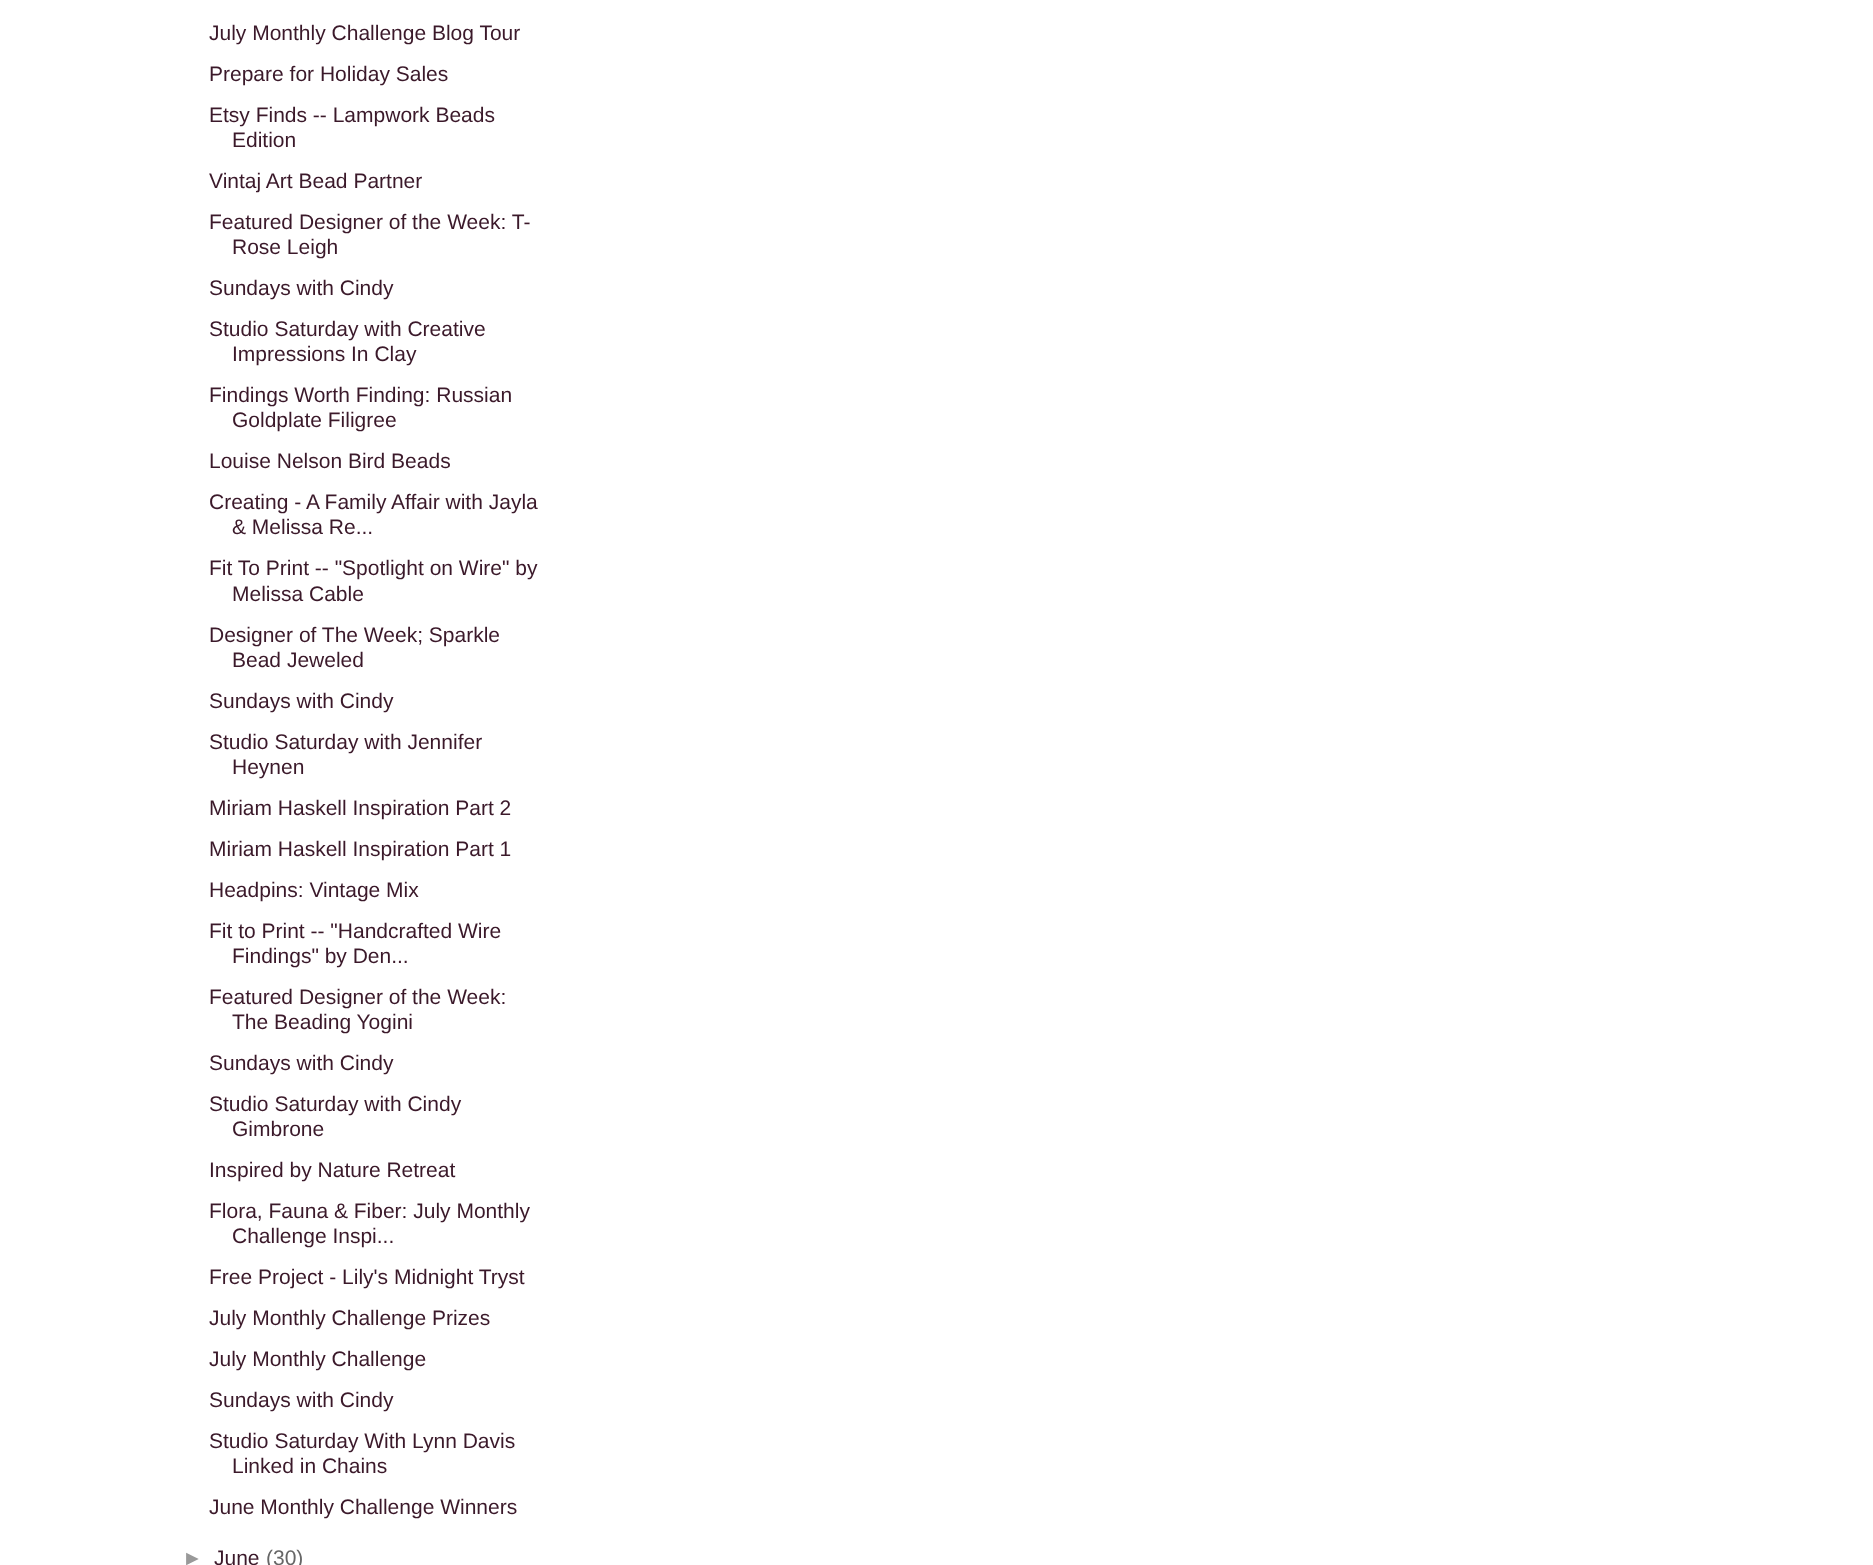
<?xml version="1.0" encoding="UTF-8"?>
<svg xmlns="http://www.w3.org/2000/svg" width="1873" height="1565">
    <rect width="100%" height="100%" fill="#FFFFFF"/>
    <text font-family="Liberation Sans" font-size="21" fill="#3B192A">
        <tspan x="209" y="40">July Monthly Challenge Blog Tour</tspan>
        <tspan x="209" y="81">Prepare for Holiday Sales</tspan>
        <tspan x="209" y="122">Etsy Finds -- Lampwork Beads</tspan>
    </text>
    <text x="232" y="147" font-family="Liberation Sans" font-size="21" fill="#3B192A">Edition</text>
    <text font-family="Liberation Sans" font-size="21" fill="#3B192A">
        <tspan x="209" y="188">Vintaj Art Bead Partner</tspan>
        <tspan x="209" y="229">Featured Designer of the Week: T-</tspan>
    </text>
    <text x="232" y="254" font-family="Liberation Sans" font-size="21" fill="#3B192A">Rose Leigh</text>
    <text font-family="Liberation Sans" font-size="21" fill="#3B192A">
        <tspan x="209" y="295">Sundays with Cindy</tspan>
        <tspan x="209" y="336">Studio Saturday with Creative</tspan>
    </text>
    <text x="232" y="361" font-family="Liberation Sans" font-size="21" fill="#3B192A">Impressions In Clay</text>
    <text x="209" y="402" font-family="Liberation Sans" font-size="21" fill="#3B192A">Findings Worth Finding: Russian</text>
    <text x="232" y="427" font-family="Liberation Sans" font-size="21" fill="#3B192A">Goldplate Filigree</text>
    <text font-family="Liberation Sans" font-size="21" fill="#3B192A">
        <tspan x="209" y="468">Louise Nelson Bird Beads</tspan>
        <tspan x="209" y="509">Creating - A Family Affair with Jayla</tspan>
    </text>
    <text x="232" y="534" font-family="Liberation Sans" font-size="21" fill="#3B192A">&amp; Melissa Re...</text>
    <text x="209" y="575" font-family="Liberation Sans" font-size="21" fill="#3B192A">Fit To Print -- "Spotlight on Wire" by</text>
    <text x="232" y="601" font-family="Liberation Sans" font-size="21" fill="#3B192A">Melissa Cable</text>
    <text x="209" y="642" font-family="Liberation Sans" font-size="21" fill="#3B192A">Designer of The Week; Sparkle</text>
    <text x="232" y="667" font-family="Liberation Sans" font-size="21" fill="#3B192A">Bead Jeweled</text>
    <text font-family="Liberation Sans" font-size="21" fill="#3B192A">
        <tspan x="209" y="708">Sundays with Cindy</tspan>
        <tspan x="209" y="749">Studio Saturday with Jennifer</tspan>
    </text>
    <text x="232" y="774" font-family="Liberation Sans" font-size="21" fill="#3B192A">Heynen</text>
    <text font-family="Liberation Sans" font-size="21" fill="#3B192A">
        <tspan x="209" y="815">Miriam Haskell Inspiration Part 2</tspan>
        <tspan x="209" y="856">Miriam Haskell Inspiration Part 1</tspan>
        <tspan x="209" y="897">Headpins: Vintage Mix</tspan>
        <tspan x="209" y="938">Fit to Print -- "Handcrafted Wire</tspan>
    </text>
    <text x="232" y="963" font-family="Liberation Sans" font-size="21" fill="#3B192A">Findings" by Den...</text>
    <text x="209" y="1004" font-family="Liberation Sans" font-size="21" fill="#3B192A">Featured Designer of the Week:</text>
    <text x="232" y="1029" font-family="Liberation Sans" font-size="21" fill="#3B192A">The Beading Yogini</text>
    <text font-family="Liberation Sans" font-size="21" fill="#3B192A">
        <tspan x="209" y="1070">Sundays with Cindy</tspan>
        <tspan x="209" y="1111">Studio Saturday with Cindy</tspan>
    </text>
    <text x="232" y="1136" font-family="Liberation Sans" font-size="21" fill="#3B192A">Gimbrone</text>
    <text font-family="Liberation Sans" font-size="21" fill="#3B192A">
        <tspan x="209" y="1177">Inspired by Nature Retreat</tspan>
        <tspan x="209" y="1218">Flora, Fauna &amp; Fiber: July Monthly</tspan>
    </text>
    <text x="232" y="1243" font-family="Liberation Sans" font-size="21" fill="#3B192A">Challenge Inspi...</text>
    <text font-family="Liberation Sans" font-size="21" fill="#3B192A">
        <tspan x="209" y="1284">Free Project - Lily's Midnight Tryst</tspan>
        <tspan x="209" y="1325">July Monthly Challenge Prizes</tspan>
        <tspan x="209" y="1366">July Monthly Challenge</tspan>
        <tspan x="209" y="1407">Sundays with Cindy</tspan>
        <tspan x="209" y="1448">Studio Saturday With Lynn Davis</tspan>
    </text>
    <text x="232" y="1473" font-family="Liberation Sans" font-size="21" fill="#3B192A">Linked in Chains</text>
    <text x="209" y="1514" font-family="Liberation Sans" font-size="21" fill="#3B192A">June Monthly Challenge Winners</text>
    <text x="182" y="1565" font-family="Liberation Sans" font-size="21" fill="#999999">►</text>
    <text x="214" y="1565" font-family="Liberation Sans" font-size="21" fill="#3B192A">June</text>
    <text x="266" y="1565" font-family="Liberation Sans" font-size="21" fill="#666666">(30)</text>
</svg>
